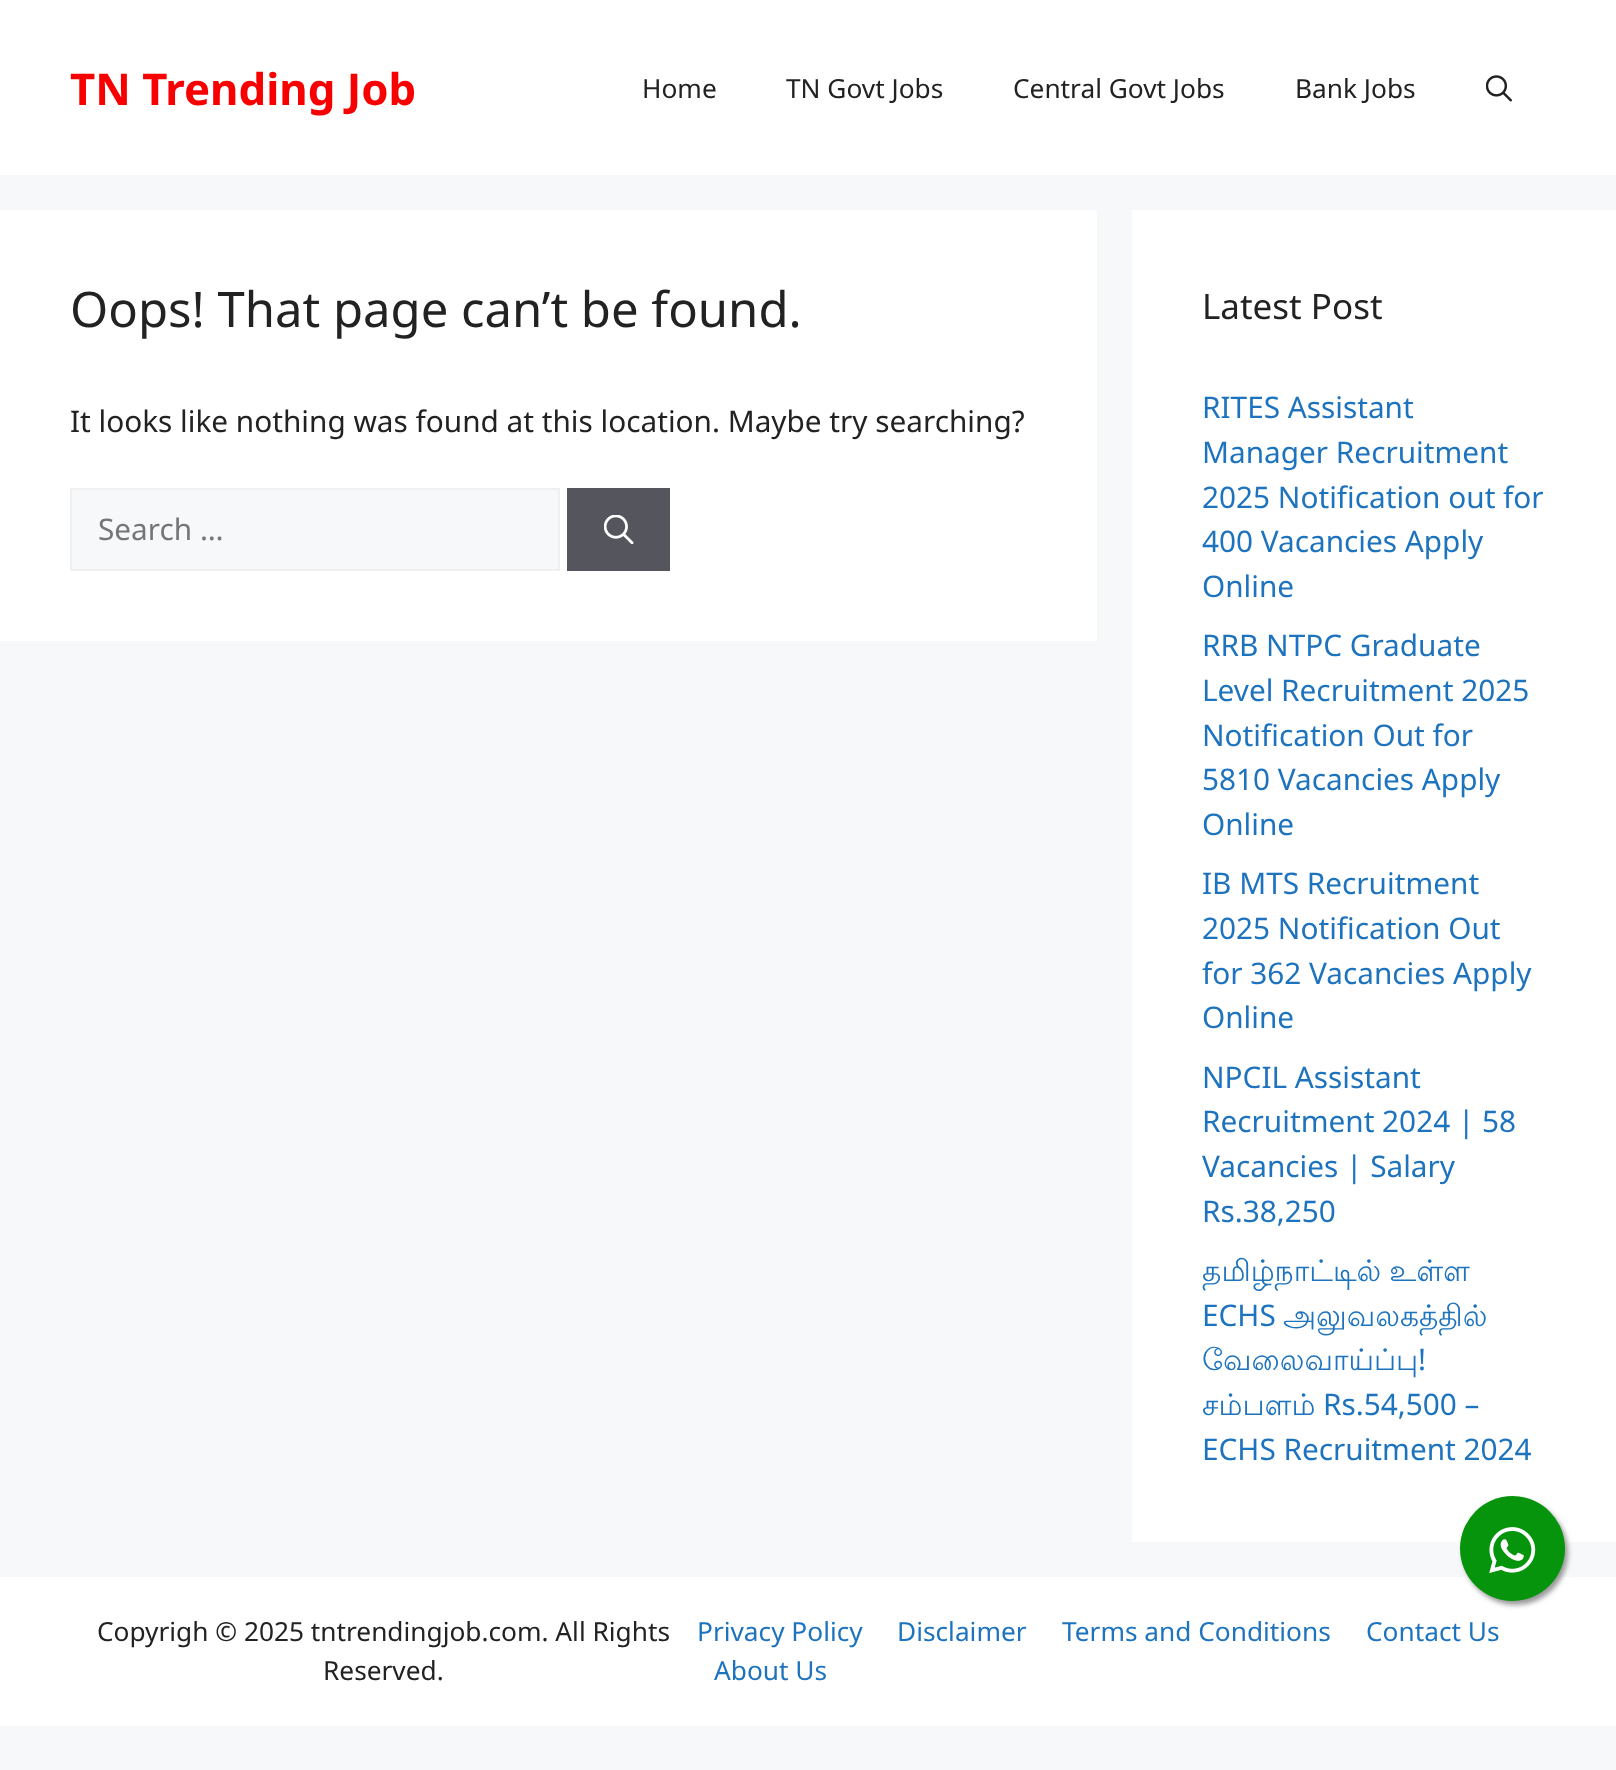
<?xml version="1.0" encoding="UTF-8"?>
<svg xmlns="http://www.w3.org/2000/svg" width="1616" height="1770">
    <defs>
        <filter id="blur1" x="-50%" y="-200%" width="200%" height="500%"><feGaussianBlur stdDeviation="2.5"/></filter>
    </defs>
    <rect width="100%" height="100%" fill="#F7F8F9"/>
    <rect x="0" y="0" width="1616" height="175" fill="#FFFFFF"/>
    <text x="70" y="105" font-family="Noto Sans" font-size="43.75" font-weight="700" fill="#F80000">TN Trending Job</text>
    <text x="642" y="98" font-family="Noto Sans" font-size="26.25" fill="#222222">Home</text>
    <text x="786" y="98" font-family="Noto Sans" font-size="26.25" fill="#222222">TN Govt Jobs</text>
    <text x="1013" y="98" font-family="Noto Sans" font-size="26.25" fill="#222222">Central Govt Jobs</text>
    <text x="1295" y="98" font-family="Noto Sans" font-size="26.25" fill="#222222">Bank Jobs</text>
    <image x="1486" y="75" width="26" height="27" href="img_01.png"/>
    <rect x="0" y="210" width="1097" height="431" fill="#FFFFFF"/>
    <text x="70" y="327" font-family="Noto Sans" font-size="49" fill="#222222">Oops! That page can’t be found.</text>
    <text x="70" y="432" font-family="Noto Sans" font-size="29.75" fill="#222222">It looks like nothing was found at this location. Maybe try searching?</text>
    <rect x="71" y="489" width="488" height="81" fill="#F7F8F9" stroke="#F0F0F0" stroke-width="2"/>
    <text x="98" y="540" font-family="Noto Sans" font-size="29.75" fill="#757575">Search …</text>
    <rect x="567" y="488" width="103" height="83" fill="#55555E"/>
    <image x="604" y="515" width="30" height="29" href="img_02.png"/>
    <rect x="1132" y="210" width="484" height="1332" fill="#FFFFFF"/>
    <text x="1202" y="319" font-family="Noto Sans" font-size="35" fill="#222222">Latest Post</text>
    <text font-family="Noto Sans" font-size="29.75" fill="#1E73BE">
        <tspan x="1202" y="418">RITES Assistant</tspan>
        <tspan x="1202" y="463">Manager Recruitment</tspan>
        <tspan x="1202" y="508">2025 Notification out for</tspan>
        <tspan x="1202" y="552">400 Vacancies Apply</tspan>
        <tspan x="1202" y="597">Online</tspan>
        <tspan x="1202" y="656">RRB NTPC Graduate</tspan>
        <tspan x="1202" y="701">Level Recruitment 2025</tspan>
        <tspan x="1202" y="746">Notification Out for</tspan>
        <tspan x="1202" y="790">5810 Vacancies Apply</tspan>
        <tspan x="1202" y="835">Online</tspan>
        <tspan x="1202" y="894">IB MTS Recruitment</tspan>
        <tspan x="1202" y="939">2025 Notification Out</tspan>
        <tspan x="1202" y="984">for 362 Vacancies Apply</tspan>
        <tspan x="1202" y="1028">Online</tspan>
    </text>
    <text font-family="Noto Sans" font-size="29.75" fill="#1E73BE">
        <tspan x="1202" y="1088">NPCIL Assistant</tspan>
        <tspan x="1202" y="1132">Recruitment 2024 | 58</tspan>
        <tspan x="1202" y="1177">Vacancies | Salary</tspan>
        <tspan x="1202" y="1222">Rs.38,250</tspan>
    </text>
    <text x="1202" y="1281" word-spacing="-1" font-family="Lohit Tamil" font-size="29.75" fill="#1E73BE">தமிழ்நாட்டில் உள்ள</text>
    <text x="1202" y="1326" font-family="Noto Sans" font-size="29.75" fill="#1E73BE">ECHS</text>
    <text x="1283" y="1326" font-family="Lohit Tamil" font-size="29.75" fill="#1E73BE">அலுவலகத்தில்</text>
    <text x="1202" y="1370" font-family="Lohit Tamil" font-size="29.75" fill="#1E73BE">வேலைவாய்ப்பு</text>
    <text x="1418" y="1370" font-family="Noto Sans" font-size="29.75" fill="#1E73BE">!</text>
    <text x="1202" y="1415" font-family="Lohit Tamil" font-size="29.75" fill="#1E73BE">சம்பளம்</text>
    <text x="1323" y="1415" font-family="Noto Sans" font-size="29.75" fill="#1E73BE">Rs.54,500 –</text>
    <text x="1202" y="1460" font-family="Noto Sans" font-size="29.75" fill="#1E73BE">ECHS Recruitment 2024</text>
    <rect x="0" y="1577" width="1616" height="149" fill="#FFFFFF"/>
    <rect x="1463" y="1500" width="105" height="105" rx="52.5" fill="#999999" filter="url(#blur1)"/>
    <circle cx="1512.5" cy="1548.5" r="52.5" fill="#05940B"/>
    <image x="1489" y="1527" width="47" height="46" href="img_03.png"/>
    <text x="97" y="1641" font-family="Noto Sans" font-size="26.25" fill="#222222">Copyrigh © 2025 tntrendingjob.com. All Rights</text>
    <text x="323" y="1680" font-family="Noto Sans" font-size="26.25" fill="#222222">Reserved.</text>
    <text x="697" y="1641" font-family="Noto Sans" font-size="26.25" fill="#1E73BE">Privacy Policy</text>
    <text x="897" y="1641" font-family="Noto Sans" font-size="26.25" fill="#1E73BE">Disclaimer</text>
    <text x="1062" y="1641" font-family="Noto Sans" font-size="26.25" fill="#1E73BE">Terms and Conditions</text>
    <text x="1366" y="1641" font-family="Noto Sans" font-size="26.25" fill="#1E73BE">Contact Us</text>
    <text x="714" y="1680" font-family="Noto Sans" font-size="26.25" fill="#1E73BE">About Us</text>
</svg>
